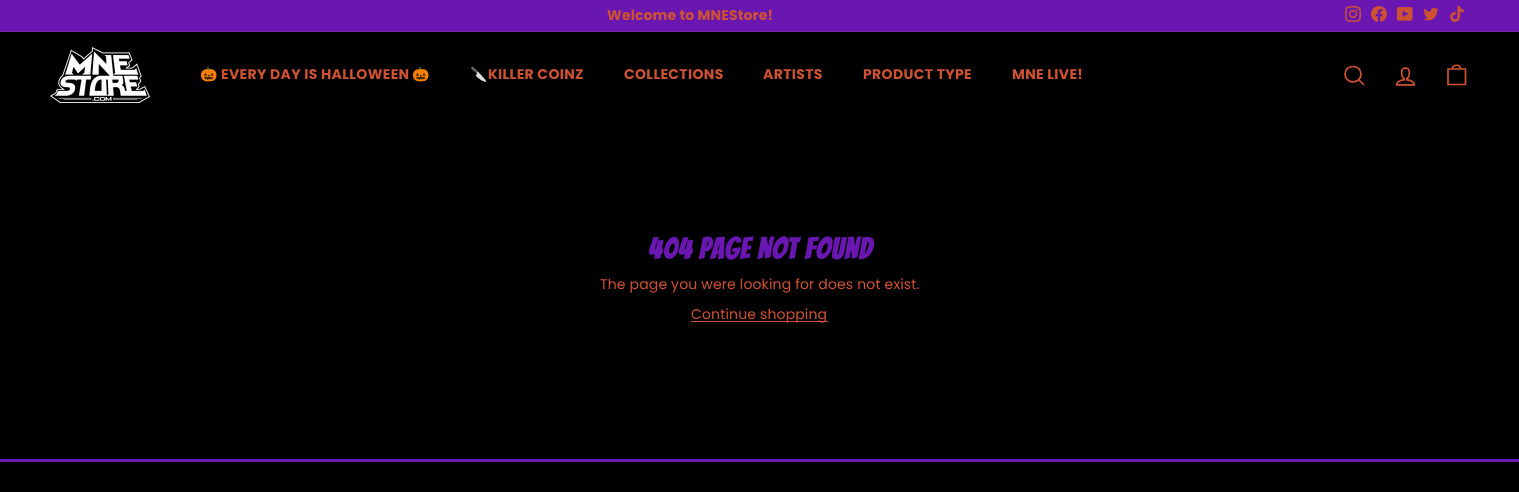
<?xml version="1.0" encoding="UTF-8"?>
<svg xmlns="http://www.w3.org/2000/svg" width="1519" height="492">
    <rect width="100%" height="100%" fill="#000000"/>
    <rect x="0" y="0" width="1519" height="31" fill="#6A17B1"/>
    <text x="607" y="20" font-family="Poppins" font-size="14" font-weight="700" letter-spacing="0.15" fill="#CD5232">Welcome to MNEStore!</text>
    <image x="1345" y="6" width="16" height="16" href="img_01.png"/>
    <image x="1371" y="6" width="16" height="16" href="img_02.png"/>
    <image x="1397" y="7" width="16" height="14" href="img_03.png"/>
    <image x="1423" y="7" width="16" height="14" href="img_04.png"/>
    <image x="1450" y="6" width="14" height="16" href="img_05.png"/>
    <rect x="0" y="31" width="1519" height="1" fill="#79209E"/>
    <image x="50" y="47" width="100" height="56" href="img_06.png"/>
    <text x="200" y="79" font-family="Noto Color Emoji" font-size="14" font-weight="700" letter-spacing="0.35" fill="#CD5232">🎃</text>
    <text x="221" y="79" font-family="Poppins" font-size="14" font-weight="700" letter-spacing="0.35" fill="#CD5232">EVERY DAY IS HALLOWEEN</text>
    <text x="412" y="79" font-family="Noto Color Emoji" font-size="14" font-weight="700" letter-spacing="0.35" fill="#CD5232">🎃</text>
    <text x="470" y="79" font-family="Noto Color Emoji" font-size="14" font-weight="700" letter-spacing="0.35" fill="#CD5232">🔪</text>
    <text x="488" y="79" font-family="Poppins" font-size="14" font-weight="700" letter-spacing="0.35" fill="#CD5232">KILLER COINZ</text>
    <text x="624" y="79" font-family="Poppins" font-size="14" font-weight="700" letter-spacing="0.35" fill="#CD5232">COLLECTIONS</text>
    <text x="763" y="79" font-family="Poppins" font-size="14" font-weight="700" letter-spacing="0.35" fill="#CD5232">ARTISTS</text>
    <text x="863" y="79" font-family="Poppins" font-size="14" font-weight="700" letter-spacing="0.35" fill="#CD5232">PRODUCT TYPE</text>
    <text x="1012" y="79" font-family="Poppins" font-size="14" font-weight="700" letter-spacing="0.35" fill="#CD5232">MNE LIVE!</text>
    <path d="M 1361 74 C 1361 84.5 1345 84.5 1345 74 C 1345 64 1361 64 1361 74 Z M 1364 85 L 1358.5 79.5" fill="none" stroke="#CD5232" stroke-width="1.7"/>
    <image x="1395" y="67" width="21" height="19" href="img_07.png"/>
    <path d="M 1452.5 69 C 1452.5 64 1460.5 64 1460.5 69 M 1448 69 H 1465.5 V 84.5 H 1448 Z" fill="none" stroke="#CD5232" stroke-width="1.7"/>
    <text x="648" y="259" font-family="Bangers" font-size="29.25" font-weight="700" letter-spacing="1" fill="#6A17B1">404 PAGE NOT FOUND</text>
    <text x="600" y="289" font-family="Poppins" font-size="14" letter-spacing="0.15" fill="#CD5232">The page you were looking for does not exist.</text>
    <rect x="691" y="321" width="137" height="1" fill="#CD5232"/>
    <text x="691" y="319" font-family="Poppins" font-size="14" letter-spacing="0.15" fill="#CD5232">Continue shopping</text>
    <rect x="0" y="459" width="1519" height="3" fill="#6A17B1"/>
</svg>
